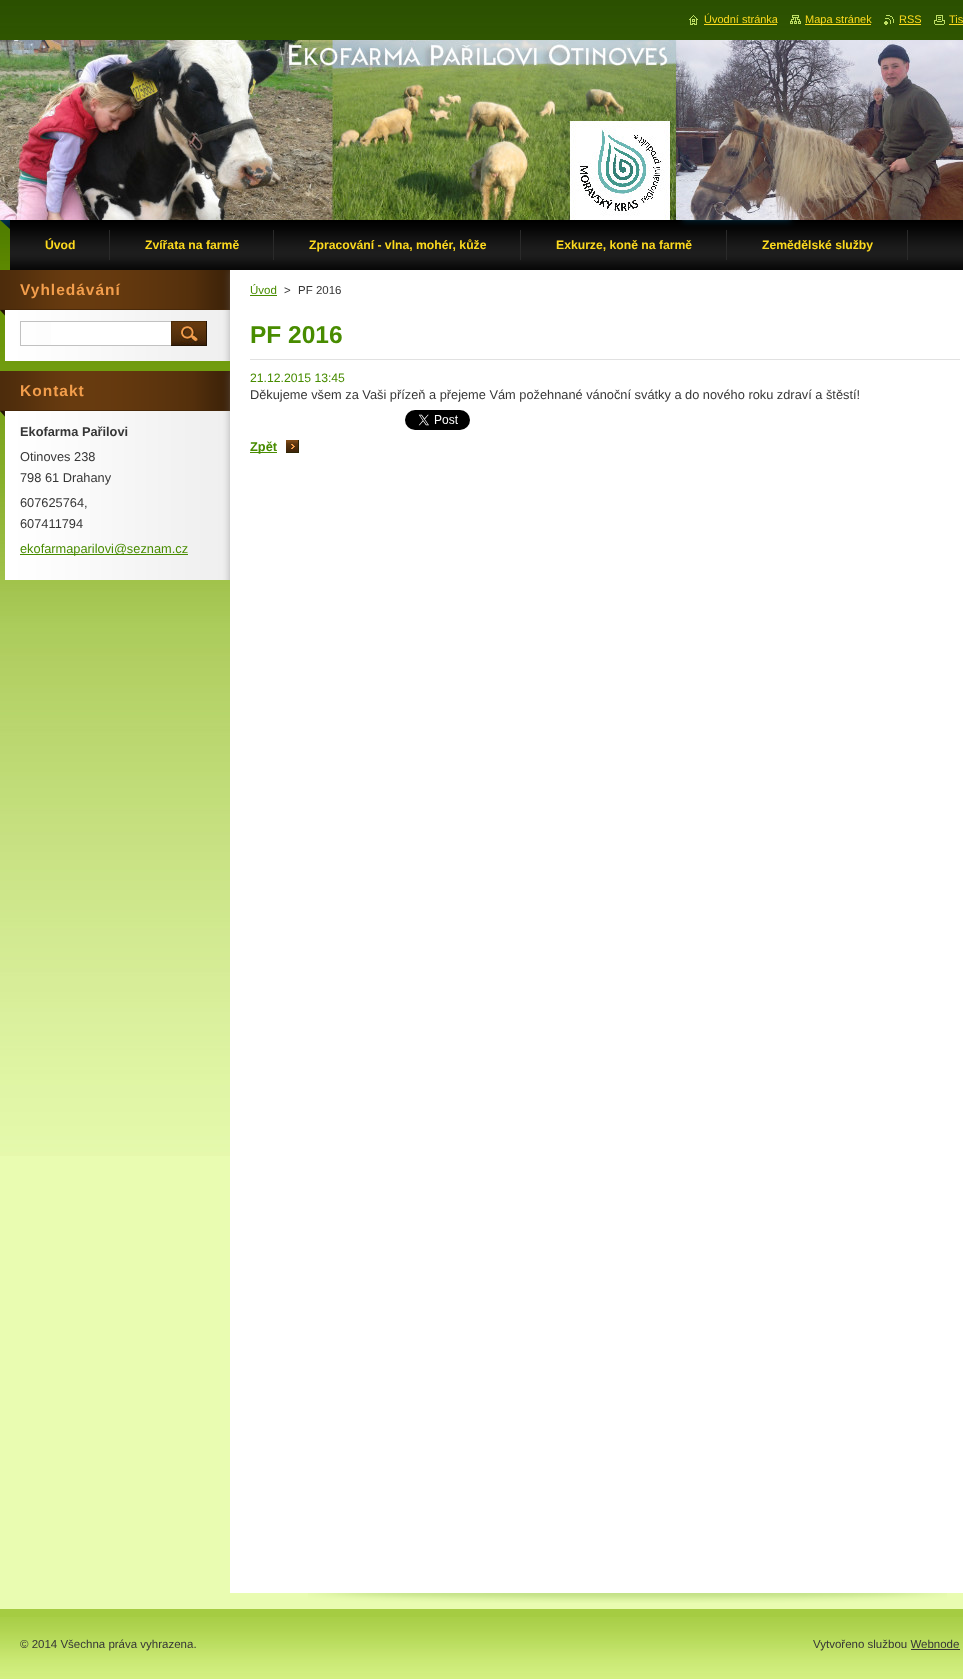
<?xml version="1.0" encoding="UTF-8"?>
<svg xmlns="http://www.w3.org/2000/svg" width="963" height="1679">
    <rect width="100%" height="100%" fill="#E9FCB1"/>
    <image x="0" y="0" width="963" height="1156" href="img_01.png"/>
    <image x="689" y="15" width="9" height="10" href="img_02.png"/>
    <text x="704" y="23" font-family="Liberation Sans" font-size="11" fill="#FDDA1E">Úvodní stránka</text>
    <rect x="704" y="24" width="73" height="1" fill="#FDDA1E"/>
    <image x="790" y="15" width="11" height="9" href="img_03.png"/>
    <rect x="805" y="24" width="66" height="1" fill="#FDDA1E"/>
    <text x="805" y="23" font-family="Liberation Sans" font-size="11" fill="#FDDA1E">Mapa stránek</text>
    <image x="884" y="15" width="10" height="10" href="img_04.png"/>
    <text x="899" y="23" font-family="Liberation Sans" font-size="11" fill="#FDDA1E">RSS</text>
    <rect x="899" y="24" width="22" height="1" fill="#FDDA1E"/>
    <image x="934" y="15" width="11" height="10" href="img_05.png"/>
    <text x="949" y="23" font-family="Liberation Sans" font-size="11" fill="#FDDA1E">Tis</text>
    <rect x="949" y="24" width="14" height="1" fill="#FDDA1E"/>
    <image x="0" y="40" width="963" height="180" href="img_06.png"/>
    <image x="0" y="220" width="963" height="50" href="img_07.png"/>
    <rect x="109" y="230" width="1" height="30" fill="#2A2A2A"/>
    <text x="45" y="249" font-family="Liberation Sans" font-size="12.2" font-weight="700" fill="#FDDA1E">Úvod</text>
    <rect x="273" y="230" width="1" height="30" fill="#2A2A2A"/>
    <text x="145" y="249" font-family="Liberation Sans" font-size="12.2" font-weight="700" fill="#FDDA1E">Zvířata na farmě</text>
    <rect x="520" y="230" width="1" height="30" fill="#2A2A2A"/>
    <text x="309" y="249" font-family="Liberation Sans" font-size="12.2" font-weight="700" fill="#FDDA1E">Zpracování - vlna, mohér, kůže</text>
    <rect x="726" y="230" width="1" height="30" fill="#2A2A2A"/>
    <text x="556" y="249" font-family="Liberation Sans" font-size="12.2" font-weight="700" fill="#FDDA1E">Exkurze, koně na farmě</text>
    <rect x="907" y="230" width="1" height="30" fill="#2A2A2A"/>
    <text x="762" y="249" font-family="Liberation Sans" font-size="12.2" font-weight="700" fill="#FDDA1E">Zemědělské služby</text>
    <image x="5" y="316" width="225" height="45" href="img_08.png"/>
    <image x="0" y="270" width="230" height="46" href="img_09.png"/>
    <text x="20" y="295" font-family="Liberation Sans" font-size="15.5" font-weight="700" letter-spacing="1" fill="#F39E4C">Vyhledávání</text>
    <rect x="51" y="322" width="120" height="23" fill="#FFFFFF"/>
    <rect x="20.5" y="321.5" width="151" height="24" fill="none" stroke="#C1C1C1"/>
    <image x="171" y="321" width="36" height="25" href="img_10.png"/>
    <image x="5" y="417" width="225" height="163" href="img_11.png"/>
    <image x="0" y="371" width="230" height="46" href="img_12.png"/>
    <text x="20" y="396" font-family="Liberation Sans" font-size="15.5" font-weight="700" letter-spacing="1" fill="#F39E4C">Kontakt</text>
    <text x="20" y="436" font-family="Liberation Sans" font-size="12.8" font-weight="700" fill="#363636">Ekofarma Pařilovi</text>
    <text font-family="Liberation Sans" font-size="12.8" fill="#363636">
        <tspan x="20" y="461">Otinoves 238</tspan>
        <tspan x="20" y="482">798 61 Drahany</tspan>
        <tspan x="20" y="507">607625764,</tspan>
        <tspan x="20" y="528">607411794</tspan>
    </text>
    <rect x="20" y="554" width="168" height="1" fill="#488C00"/>
    <text x="20" y="553" font-family="Liberation Sans" font-size="12.8" fill="#488C00">ekofarmaparilovi@seznam.cz</text>
    <image x="308" y="1593" width="639" height="10" href="img_13.png"/>
    <rect x="230" y="270" width="733" height="1323" fill="#FFFFFF"/>
    <text x="250" y="294" font-family="Liberation Sans" font-size="11.5" fill="#488C00">Úvod</text>
    <rect x="250" y="295" width="27" height="1" fill="#488C00"/>
    <text x="284" y="294" font-family="Liberation Sans" font-size="11.5" fill="#363636">&gt;</text>
    <text x="298" y="294" font-family="Liberation Sans" font-size="11.5" fill="#363636">PF 2016</text>
    <rect x="250" y="359" width="710" height="1" fill="#E1E1E1"/>
    <text x="250" y="343" font-family="Liberation Sans" font-size="24.5" font-weight="700" fill="#488C00">PF 2016</text>
    <text x="250" y="382" font-family="Liberation Sans" font-size="12.2" fill="#488C00">21.12.2015 13:45</text>
    <text x="250" y="399" font-family="Liberation Sans" font-size="12.8" fill="#363636">Děkujeme všem za Vaši přízeň a přejeme Vám požehnané vánoční svátky a do nového roku zdraví a štěstí!</text>
    <image x="405" y="410" width="65" height="20" href="img_14.png"/>
    <image x="286" y="440" width="13" height="13" href="img_15.png"/>
    <rect x="250" y="452" width="27" height="1" fill="#488C00"/>
    <text x="250" y="451" font-family="Liberation Sans" font-size="12.8" font-weight="700" fill="#488C00">Zpět</text>
    <rect x="0" y="1609" width="963" height="8" fill="#A5CC42"/>
    <image x="0" y="1617" width="963" height="62" href="img_16.png"/>
    <text x="20" y="1648" font-family="Liberation Sans" font-size="11.5" fill="#363636">© 2014 Všechna práva vyhrazena.</text>
    <text x="813" y="1648" font-family="Liberation Sans" font-size="11.5" fill="#363636">Vytvořeno službou Webnode</text>
    <rect x="911" y="1649" width="49" height="1" fill="#363636"/>
</svg>
